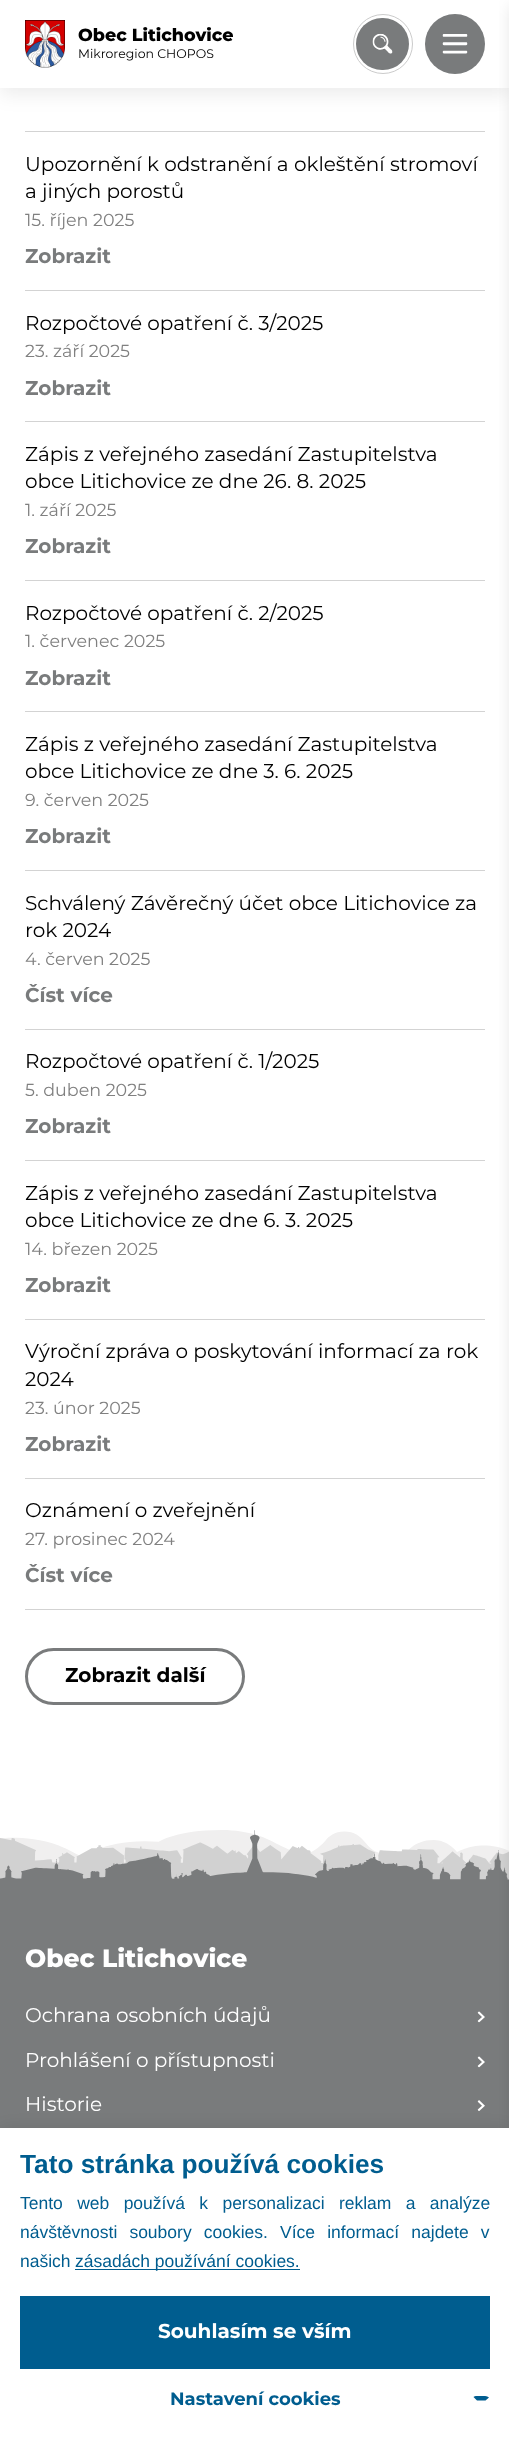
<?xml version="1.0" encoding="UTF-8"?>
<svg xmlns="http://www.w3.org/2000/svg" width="509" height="2437">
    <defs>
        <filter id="blur1" x="-50%" y="-200%" width="200%" height="500%"><feGaussianBlur stdDeviation="9.5"/></filter>
        <filter id="blur2" x="-50%" y="-200%" width="200%" height="500%"><feGaussianBlur stdDeviation="7.5"/></filter>
    </defs>
    <rect width="100%" height="100%" fill="#FFFFFF"/>
    <rect x="0" y="6" width="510" height="88" fill="#000000" fill-opacity="0.08" filter="url(#blur1)"/>
    <rect x="0" y="0" width="509" height="88" fill="#FFFFFF"/>
    <image x="25" y="20" width="40" height="48" href="img_01.png"/>
    <text x="78" y="41" font-family="Montserrat" font-size="17.5" font-weight="800" fill="#000000">Obec Litichovice</text>
    <text x="78" y="58" font-family="Montserrat" font-size="12.5" fill="#000000">Mikroregion CHOPOS</text>
    <circle cx="383" cy="44" r="29.5" fill="none" stroke="#CBCBCB"/>
    <rect x="356" y="18" width="53" height="52" rx="26" fill="#797B7C"/>
    <image x="372" y="33" width="21" height="21" href="img_02.png"/>
    <circle cx="455" cy="44" r="30" fill="#797B7C"/>
    <image x="442" y="34" width="26" height="20" href="img_03.png"/>
    <image x="0" y="1830" width="509" height="51" href="img_04.png"/>
    <rect x="0" y="1881" width="509" height="247" fill="#797B7C"/>
    <rect x="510" y="6" width="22" height="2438" fill="#000000" fill-opacity="0.1" filter="url(#blur2)"/>
    <rect x="25" y="131" width="460" height="1" fill="#D3D3D3"/>
    <rect x="25" y="1609" width="460" height="1" fill="#D3D3D3"/>
    <text font-family="Montserrat" font-size="20" fill="#000000">
        <tspan x="25" y="171">Upozornění k odstranění a okleštění stromoví</tspan>
        <tspan x="25" y="198">a jiných porostů</tspan>
    </text>
    <text x="25" y="226" font-family="Montserrat" font-size="17.5" fill="#808080">15. říjen 2025</text>
    <text x="25" y="263" font-family="Montserrat" font-size="20" font-weight="700" fill="#797B7C">Zobrazit</text>
    <rect x="25" y="290" width="460" height="1" fill="#D3D3D3"/>
    <text x="25" y="330" font-family="Montserrat" font-size="20" fill="#000000">Rozpočtové opatření č. 3/2025</text>
    <text x="25" y="357" font-family="Montserrat" font-size="17.5" fill="#808080">23. září 2025</text>
    <text x="25" y="395" font-family="Montserrat" font-size="20" font-weight="700" fill="#797B7C">Zobrazit</text>
    <rect x="25" y="421" width="460" height="1" fill="#D3D3D3"/>
    <text font-family="Montserrat" font-size="20" fill="#000000">
        <tspan x="25" y="461">Zápis z veřejného zasedání Zastupitelstva</tspan>
        <tspan x="25" y="488">obce Litichovice ze dne 26. 8. 2025</tspan>
    </text>
    <text x="25" y="516" font-family="Montserrat" font-size="17.5" fill="#808080">1. září 2025</text>
    <text x="25" y="553" font-family="Montserrat" font-size="20" font-weight="700" fill="#797B7C">Zobrazit</text>
    <rect x="25" y="580" width="460" height="1" fill="#D3D3D3"/>
    <text x="25" y="620" font-family="Montserrat" font-size="20" fill="#000000">Rozpočtové opatření č. 2/2025</text>
    <text x="25" y="647" font-family="Montserrat" font-size="17.5" fill="#808080">1. červenec 2025</text>
    <text x="25" y="685" font-family="Montserrat" font-size="20" font-weight="700" fill="#797B7C">Zobrazit</text>
    <rect x="25" y="711" width="460" height="1" fill="#D3D3D3"/>
    <text font-family="Montserrat" font-size="20" fill="#000000">
        <tspan x="25" y="751">Zápis z veřejného zasedání Zastupitelstva</tspan>
        <tspan x="25" y="778">obce Litichovice ze dne 3. 6. 2025</tspan>
    </text>
    <text x="25" y="806" font-family="Montserrat" font-size="17.5" fill="#808080">9. červen 2025</text>
    <text x="25" y="843" font-family="Montserrat" font-size="20" font-weight="700" fill="#797B7C">Zobrazit</text>
    <rect x="25" y="870" width="460" height="1" fill="#D3D3D3"/>
    <text font-family="Montserrat" font-size="20" fill="#000000">
        <tspan x="25" y="910">Schválený Závěrečný účet obce Litichovice za</tspan>
        <tspan x="25" y="937">rok 2024</tspan>
    </text>
    <text x="25" y="965" font-family="Montserrat" font-size="17.5" fill="#808080">4. červen 2025</text>
    <text x="25" y="1002" font-family="Montserrat" font-size="20" font-weight="700" fill="#797B7C">Číst více</text>
    <rect x="25" y="1029" width="460" height="1" fill="#D3D3D3"/>
    <text x="25" y="1068" font-family="Montserrat" font-size="20" fill="#000000">Rozpočtové opatření č. 1/2025</text>
    <text x="25" y="1096" font-family="Montserrat" font-size="17.5" fill="#808080">5. duben 2025</text>
    <text x="25" y="1133" font-family="Montserrat" font-size="20" font-weight="700" fill="#797B7C">Zobrazit</text>
    <rect x="25" y="1160" width="460" height="1" fill="#D3D3D3"/>
    <text font-family="Montserrat" font-size="20" fill="#000000">
        <tspan x="25" y="1200">Zápis z veřejného zasedání Zastupitelstva</tspan>
        <tspan x="25" y="1227">obce Litichovice ze dne 6. 3. 2025</tspan>
    </text>
    <text x="25" y="1255" font-family="Montserrat" font-size="17.5" fill="#808080">14. březen 2025</text>
    <text x="25" y="1292" font-family="Montserrat" font-size="20" font-weight="700" fill="#797B7C">Zobrazit</text>
    <rect x="25" y="1319" width="460" height="1" fill="#D3D3D3"/>
    <text font-family="Montserrat" font-size="20" fill="#000000">
        <tspan x="25" y="1358">Výroční zpráva o poskytování informací za rok</tspan>
        <tspan x="25" y="1386">2024</tspan>
    </text>
    <text x="25" y="1414" font-family="Montserrat" font-size="17.5" fill="#808080">23. únor 2025</text>
    <text x="25" y="1451" font-family="Montserrat" font-size="20" font-weight="700" fill="#797B7C">Zobrazit</text>
    <rect x="25" y="1478" width="460" height="1" fill="#D3D3D3"/>
    <text x="25" y="1517" font-family="Montserrat" font-size="20" fill="#000000">Oznámení o zveřejnění</text>
    <text x="25" y="1545" font-family="Montserrat" font-size="17.5" fill="#808080">27. prosinec 2024</text>
    <text x="25" y="1582" font-family="Montserrat" font-size="20" font-weight="700" fill="#797B7C">Číst více</text>
    <rect x="26.5" y="1649.5" width="217" height="54" rx="27" fill="none" stroke="#797B7C" stroke-width="3"/>
    <text x="65" y="1682" font-family="Montserrat" font-size="20" font-weight="700" fill="#000000">Zobrazit další</text>
    <text x="25" y="1967" font-family="Montserrat" font-size="25" font-weight="800" fill="#FFFFFF">Obec Litichovice</text>
    <text x="25" y="2022" font-family="Montserrat" font-size="20" fill="#FFFFFF">Ochrana osobních údajů</text>
    <image x="477" y="2011" width="8" height="12" href="img_05.png"/>
    <text x="25" y="2067" font-family="Montserrat" font-size="20" fill="#FFFFFF">Prohlášení o přístupnosti</text>
    <image x="477" y="2056" width="8" height="12" href="img_05.png"/>
    <text x="25" y="2111" font-family="Montserrat" font-size="20" fill="#FFFFFF">Historie</text>
    <image x="477" y="2100" width="8" height="11" href="img_06.png"/>
    <rect x="0" y="2128" width="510" height="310" fill="#000000" fill-opacity="0.1" filter="url(#blur1)"/>
    <rect x="0" y="2128" width="509" height="309" fill="#FFFFFF"/>
    <text x="20" y="2173" font-family="Liberation Sans" font-size="26.25" font-weight="700" fill="#005D8F">Tato stránka používá cookies</text>
    <text font-family="Liberation Sans" font-size="17.5" fill="#005D8F">
        <tspan x="20" y="2209" word-spacing="9.5">Tento web používá k personalizaci reklam a analýze</tspan>
        <tspan x="20" y="2238" word-spacing="7.25">návštěvnosti soubory cookies. Více informací najdete v</tspan>
        <tspan x="20" y="2267">našich</tspan>
    </text>
    <rect x="75" y="2269" width="225" height="1" fill="#005D8F"/>
    <text x="75" y="2267" font-family="Liberation Sans" font-size="17.5" fill="#005D8F">zásadách používání cookies.</text>
    <rect x="20" y="2296" width="470" height="73" fill="#005D8F"/>
    <text x="158" y="2338" font-family="Montserrat" font-size="20" font-weight="700" fill="#FFFFFF">Souhlasím se vším</text>
    <text x="170" y="2405" font-family="Montserrat" font-size="18" font-weight="700" fill="#005D8F">Nastavení cookies</text>
    <path d="M 473.5 2397 C 474.5 2396 475 2396 477 2396 H 481 C 483 2396 487 2395.5 489 2397.5 L 485.5 2400.5 H 477 Z" fill="#005D8F"/>
</svg>
